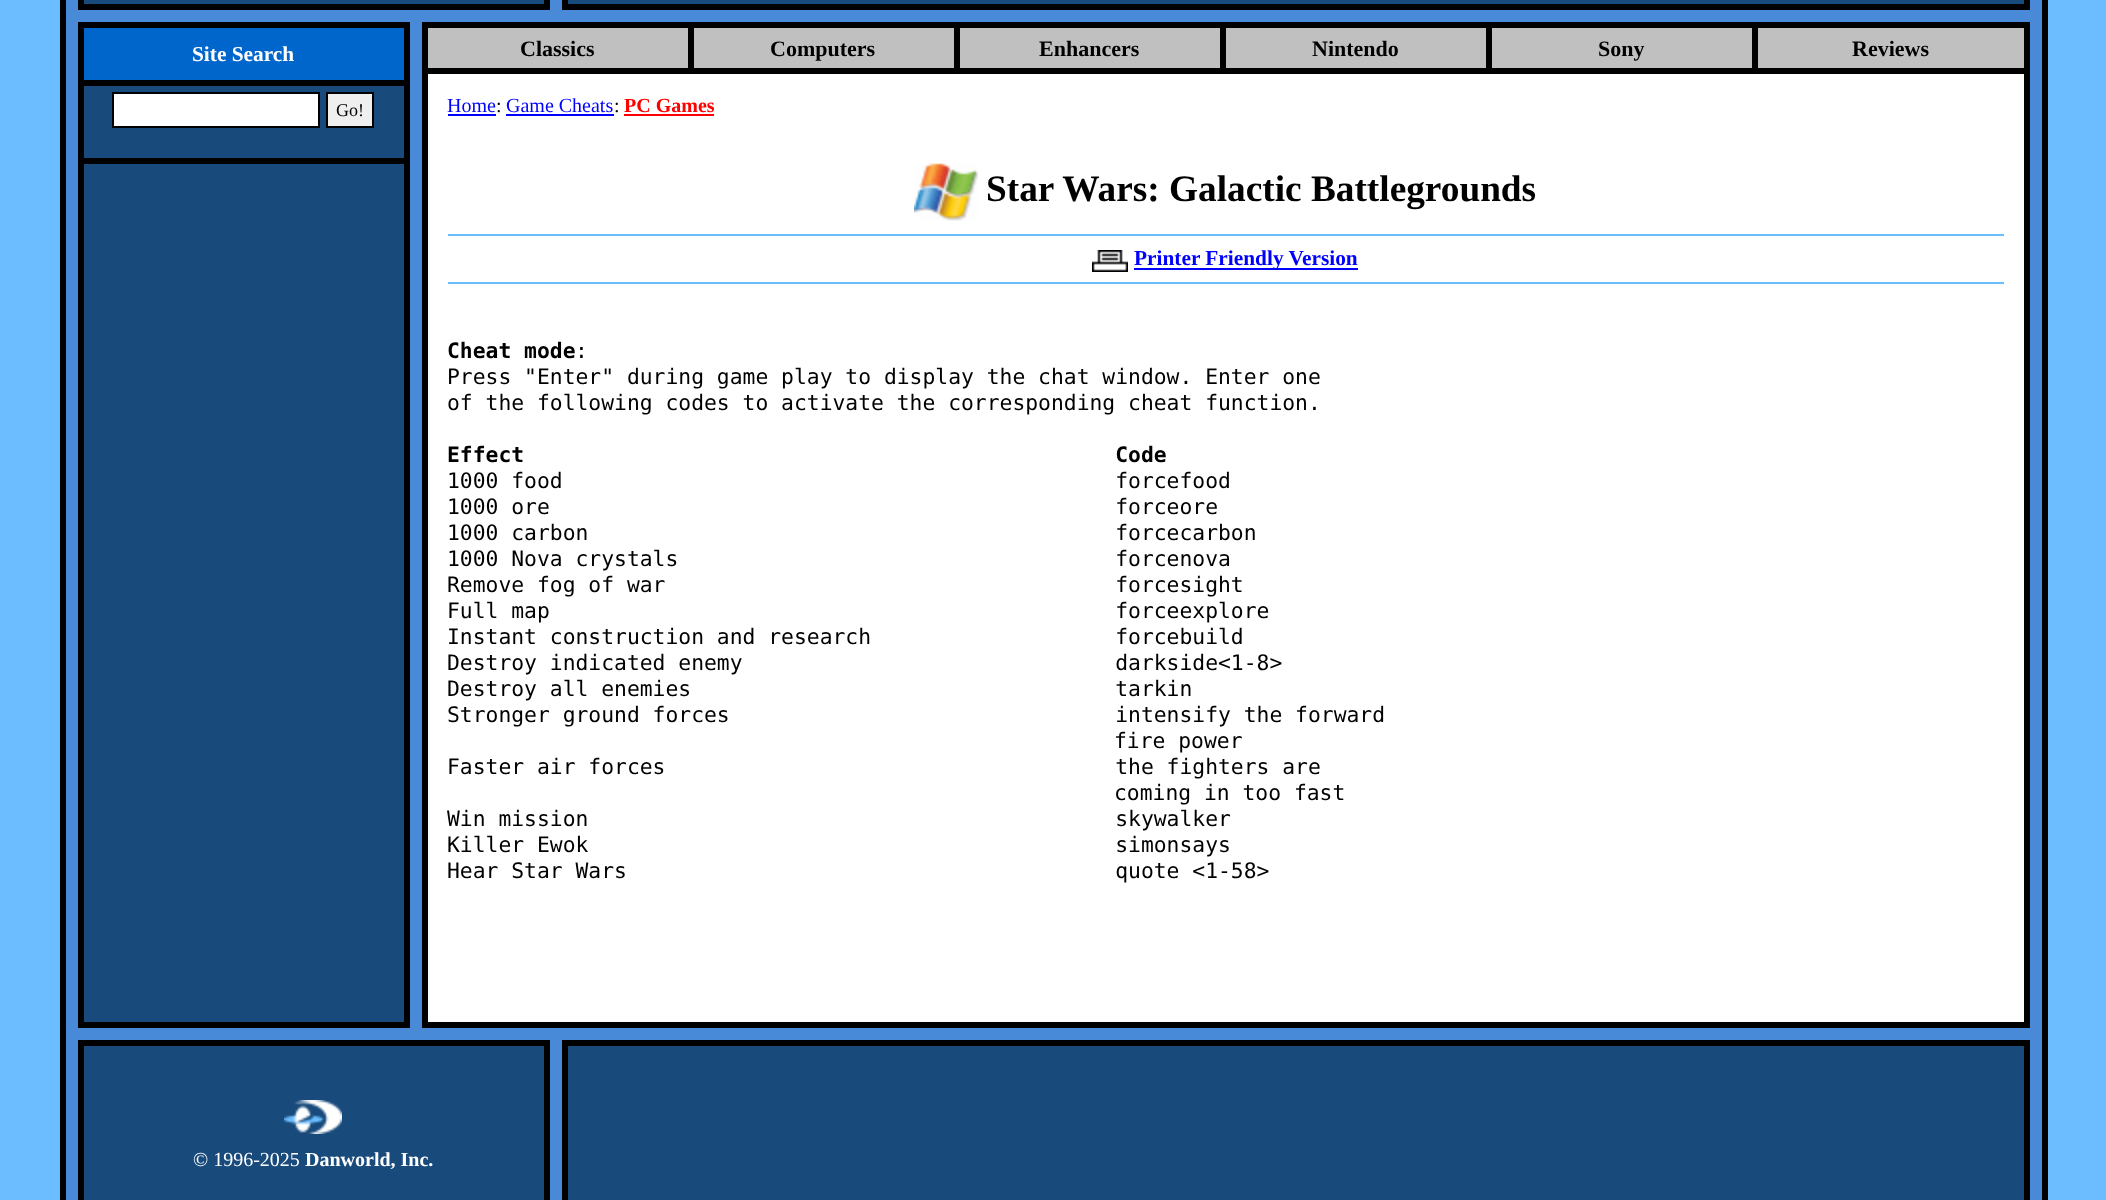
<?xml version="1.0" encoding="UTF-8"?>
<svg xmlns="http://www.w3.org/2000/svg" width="2106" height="1200">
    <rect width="100%" height="100%" fill="#6BBDFF"/>
    <rect x="60" y="0" width="1988" height="1200" fill="#000000"/>
    <rect x="66" y="0" width="12" height="10" fill="#498AD8"/>
    <rect x="84" y="0" width="460" height="4" fill="#184A7B"/>
    <rect x="550" y="0" width="12" height="10" fill="#498AD8"/>
    <rect x="568" y="0" width="1456" height="4" fill="#184A7B"/>
    <rect x="2030" y="0" width="12" height="10" fill="#498AD8"/>
    <rect x="66" y="10" width="1976" height="12" fill="#498AD8"/>
    <rect x="66" y="22" width="12" height="1006" fill="#498AD8"/>
    <rect x="410" y="22" width="12" height="1006" fill="#498AD8"/>
    <rect x="2030" y="22" width="12" height="1006" fill="#498AD8"/>
    <rect x="84" y="86" width="320" height="936" fill="#184A7B"/>
    <rect x="84" y="28" width="320" height="52" fill="#0066CC"/>
    <text x="192" y="61" font-family="Liberation Serif" font-size="21.35" font-weight="700" fill="#FFFFFF">Site Search</text>
    <rect x="113" y="93" width="206" height="34" fill="#FFFFFF" stroke="#000000" stroke-width="2"/>
    <rect x="327" y="93" width="46" height="34" fill="#EFEFEF" stroke="#000000" stroke-width="2"/>
    <text x="336" y="116" font-family="Liberation Serif" font-size="18" fill="#000000">Go!</text>
    <rect x="84" y="158" width="320" height="6" fill="#000000"/>
    <rect x="428" y="74" width="1596" height="948" fill="#FFFFFF"/>
    <rect x="428" y="28" width="260" height="40" fill="#C0C0C0"/>
    <text x="520" y="56" font-family="Liberation Serif" font-size="22" font-weight="700" fill="#000000">Classics</text>
    <rect x="694" y="28" width="260" height="40" fill="#C0C0C0"/>
    <text x="770" y="56" font-family="Liberation Serif" font-size="22" font-weight="700" fill="#000000">Computers</text>
    <rect x="960" y="28" width="260" height="40" fill="#C0C0C0"/>
    <text x="1039" y="56" font-family="Liberation Serif" font-size="22" font-weight="700" fill="#000000">Enhancers</text>
    <rect x="1226" y="28" width="260" height="40" fill="#C0C0C0"/>
    <text x="1312" y="56" font-family="Liberation Serif" font-size="22" font-weight="700" fill="#000000">Nintendo</text>
    <rect x="1492" y="28" width="260" height="40" fill="#C0C0C0"/>
    <text x="1598" y="56" font-family="Liberation Serif" font-size="22" font-weight="700" fill="#000000">Sony</text>
    <rect x="1758" y="28" width="266" height="40" fill="#C0C0C0"/>
    <text x="1852" y="56" font-family="Liberation Serif" font-size="22" font-weight="700" fill="#000000">Reviews</text>
    <text x="447" y="112" font-family="Liberation Serif" font-size="20" fill="#0000FF">Home</text>
    <rect x="448" y="114" width="48" height="2" fill="#0000FF"/>
    <text x="496" y="112" font-family="Liberation Serif" font-size="20" fill="#000000">:</text>
    <text x="506" y="112" font-family="Liberation Serif" font-size="20" fill="#0000FF">Game Cheats</text>
    <rect x="506" y="114" width="108" height="2" fill="#0000FF"/>
    <text x="614" y="112" font-family="Liberation Serif" font-size="20" fill="#000000">:</text>
    <text x="624" y="112" font-family="Liberation Serif" font-size="20" font-weight="700" fill="#FF0000">PC Games</text>
    <rect x="624" y="114" width="90" height="2" fill="#FF0000"/>
    <image x="914" y="163" width="64" height="58" href="img_01.png"/>
    <text x="986" y="201" font-family="Liberation Serif" font-size="37.3" font-weight="700" fill="#000000">Star Wars: Galactic Battlegrounds</text>
    <rect x="448" y="234" width="1556" height="2" fill="#6BBDFF"/>
    <image x="1092" y="250" width="36" height="22" href="img_02.png"/>
    <rect x="1134" y="268" width="224" height="2" fill="#0000FF"/>
    <text x="1134" y="265" font-family="Liberation Serif" font-size="21.35" font-weight="700" fill="#0000FF">Printer Friendly Version</text>
    <rect x="448" y="282" width="1556" height="2" fill="#6BBDFF"/>
    <text x="447" y="358" font-family="DejaVu Sans Mono" font-size="21.35" font-weight="700" fill="#000000">Cheat mode</text>
    <text x="575" y="358" font-family="DejaVu Sans Mono" font-size="21.35" fill="#000000">:</text>
    <text font-family="DejaVu Sans Mono" font-size="21.35" fill="#000000">
        <tspan x="447" y="384">Press "Enter" during game play to display the chat window. Enter one</tspan>
        <tspan x="447" y="410">of the following codes to activate the corresponding cheat function.</tspan>
    </text>
    <text x="447" y="462" font-family="DejaVu Sans Mono" font-size="21.35" font-weight="700" fill="#000000" xml:space="preserve">Effect                                              Code</text>
    <text font-family="DejaVu Sans Mono" font-size="21.35" fill="#000000" xml:space="preserve"><tspan x="447" y="488">1000 food                                           forcefood</tspan><tspan x="447" y="514">1000 ore                                            forceore</tspan><tspan x="447" y="540">1000 carbon                                         forcecarbon</tspan><tspan x="447" y="566">1000 Nova crystals                                  forcenova</tspan><tspan x="447" y="592">Remove fog of war                                   forcesight</tspan><tspan x="447" y="618">Full map                                            forceexplore</tspan><tspan x="447" y="644">Instant construction and research                   forcebuild</tspan><tspan x="447" y="670">Destroy indicated enemy                             darkside&lt;1-8&gt;</tspan><tspan x="447" y="696">Destroy all enemies                                 tarkin</tspan><tspan x="447" y="722">Stronger ground forces                              intensify the forward</tspan></text>
    <text x="1114" y="748" font-family="DejaVu Sans Mono" font-size="21.35" fill="#000000">fire power</text>
    <text x="447" y="774" font-family="DejaVu Sans Mono" font-size="21.35" fill="#000000" xml:space="preserve">Faster air forces                                   the fighters are</text>
    <text x="1114" y="800" font-family="DejaVu Sans Mono" font-size="21.35" fill="#000000">coming in too fast</text>
    <text font-family="DejaVu Sans Mono" font-size="21.35" fill="#000000" xml:space="preserve"><tspan x="447" y="826">Win mission                                         skywalker</tspan><tspan x="447" y="852">Killer Ewok                                         simonsays</tspan><tspan x="447" y="878">Hear Star Wars                                      quote &lt;1-58&gt;</tspan></text>
    <rect x="66" y="1028" width="1976" height="12" fill="#498AD8"/>
    <rect x="66" y="1040" width="12" height="160" fill="#498AD8"/>
    <rect x="550" y="1040" width="12" height="160" fill="#498AD8"/>
    <rect x="2030" y="1040" width="12" height="160" fill="#498AD8"/>
    <rect x="84" y="1046" width="460" height="154" fill="#184A7B"/>
    <image x="284" y="1100" width="58" height="34" href="img_03.png"/>
    <text x="193" y="1166" font-family="Liberation Serif" font-size="20" fill="#FFFFFF">© 1996-2025</text>
    <text x="305" y="1166" font-family="Liberation Serif" font-size="20" font-weight="700" fill="#FFFFFF">Danworld, Inc.</text>
    <rect x="568" y="1046" width="1456" height="154" fill="#184A7B"/>
</svg>
